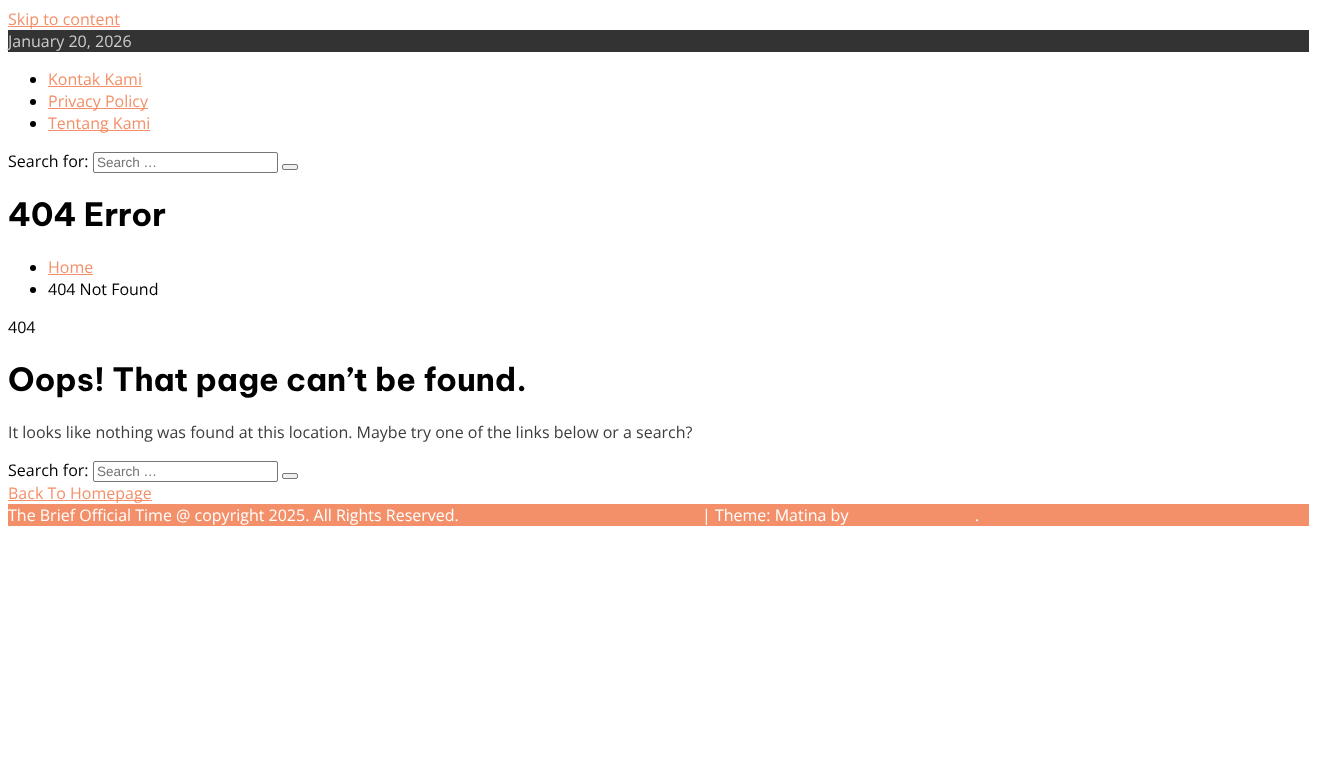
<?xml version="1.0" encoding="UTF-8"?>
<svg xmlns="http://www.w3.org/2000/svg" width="1317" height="766">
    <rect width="100%" height="100%" fill="#FFFFFF"/>
    <rect x="8" y="26" width="112" height="1" fill="#F49069"/>
    <text x="8" y="25" font-family="Open Sans" font-size="16" fill="#F49069">Skip to content</text>
    <rect x="8" y="30" width="1301" height="22" fill="#333333"/>
    <text x="8" y="47" font-family="Open Sans" font-size="16" fill="#CCCCCC">January 20, 2026</text>
    <circle cx="33" cy="80" r="3" fill="#000000"/>
    <text x="48" y="85" font-family="Open Sans" font-size="16" fill="#F49069">Kontak Kami</text>
    <rect x="48" y="86" width="94" height="1" fill="#F49069"/>
    <circle cx="33" cy="102" r="3" fill="#000000"/>
    <rect x="48" y="108" width="100" height="1" fill="#F49069"/>
    <text x="48" y="107" font-family="Open Sans" font-size="16" fill="#F49069">Privacy Policy</text>
    <circle cx="33" cy="124" r="3" fill="#000000"/>
    <rect x="48" y="130" width="102" height="1" fill="#F49069"/>
    <text x="48" y="129" font-family="Open Sans" font-size="16" fill="#F49069">Tentang Kami</text>
    <text x="8" y="167" font-family="Open Sans" font-size="16" fill="#000000">Search for:</text>
    <rect x="93.5" y="152.5" width="184" height="20" rx="1.5" fill="none" stroke="#767676"/>
    <text x="97" y="167" font-family="Liberation Sans" font-size="13.5" fill="#757575">Search …</text>
    <rect x="282.5" y="164.5" width="15" height="5" rx="1.5" fill="#EFEFEF" stroke="#767676"/>
    <text x="8" y="226" font-family="Be Vietnam Pro" font-size="32" font-weight="700" fill="#000000">404 Error</text>
    <circle cx="33" cy="268" r="3" fill="#000000"/>
    <text x="48" y="273" font-family="Open Sans" font-size="16" fill="#F49069">Home</text>
    <rect x="48" y="274" width="45" height="1" fill="#F49069"/>
    <circle cx="33" cy="290" r="3" fill="#000000"/>
    <text x="48" y="295" font-family="Open Sans" font-size="16" fill="#000000">404 Not Found</text>
    <text x="8" y="333" font-family="Open Sans" font-size="16" fill="#000000">404</text>
    <text x="8" y="391" font-family="Be Vietnam Pro" font-size="32" font-weight="700" fill="#000000">Oops! That page can’t be found.</text>
    <text x="8" y="438" font-family="Open Sans" font-size="16" fill="#3D3D3D">It looks like nothing was found at this location. Maybe try one of the links below or a search?</text>
    <text x="8" y="476" font-family="Open Sans" font-size="16" fill="#000000">Search for:</text>
    <rect x="93.5" y="461.5" width="184" height="20" rx="1.5" fill="none" stroke="#767676"/>
    <text x="97" y="476" font-family="Liberation Sans" font-size="13.5" fill="#757575">Search …</text>
    <rect x="282.5" y="473.5" width="15" height="5" rx="1.5" fill="#EFEFEF" stroke="#767676"/>
    <rect x="8" y="500" width="144" height="1" fill="#F49069"/>
    <text x="8" y="499" font-family="Open Sans" font-size="16" fill="#F49069">Back To Homepage</text>
    <rect x="8" y="504" width="1301" height="22" fill="#F49069"/>
    <text x="8" y="521" font-family="Open Sans" font-size="16" fill="#FFFFFF">The Brief Official Time @ copyright 2025. All Rights Reserved.</text>
    <text x="702" y="521" font-family="Open Sans" font-size="16" fill="#FFFFFF">| Theme: Matina by</text>
    <text x="975" y="521" font-family="Open Sans" font-size="16" fill="#FFFFFF">.</text>
</svg>
